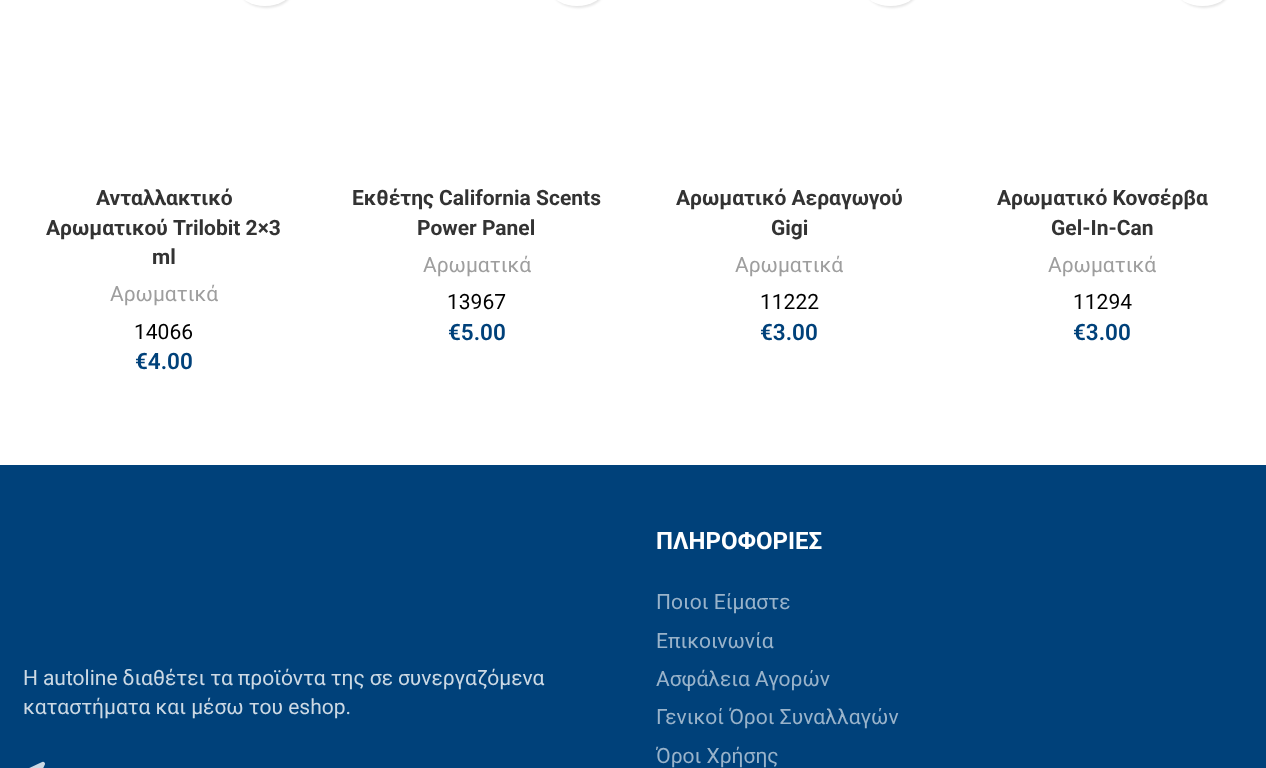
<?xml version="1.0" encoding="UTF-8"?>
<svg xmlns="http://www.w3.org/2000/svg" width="1266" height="768">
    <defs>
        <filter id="blur1" x="-50%" y="-200%" width="200%" height="500%"><feGaussianBlur stdDeviation="1"/></filter>
    </defs>
    <rect width="100%" height="100%" fill="#FFFFFF"/>
    <rect x="240" y="-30" width="53" height="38" rx="26.5" fill="#000000" fill-opacity="0.1" filter="url(#blur1)"/>
    <rect x="239" y="-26" width="52" height="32" rx="26" fill="#FFFFFF"/>
    <text x="96" y="205" font-family="Roboto" font-size="21" font-weight="700" fill="#333333">Ανταλλακτικό</text>
    <text x="46" y="235" font-family="Roboto" font-size="21" font-weight="700" fill="#333333">Αρωματικού Trilobit 2×3</text>
    <text x="152" y="264" font-family="Roboto" font-size="21" font-weight="700" fill="#333333">ml</text>
    <text x="110" y="301" font-family="Roboto" font-size="21" fill="#9E9E9E">Αρωματικά</text>
    <text x="134" y="339" font-family="Roboto" font-size="21" fill="#000000">14066</text>
    <text x="135" y="369" font-family="Roboto" font-size="22.5" font-weight="600" fill="#00417A">€4.00</text>
    <rect x="552" y="-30" width="53" height="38" rx="26.5" fill="#000000" fill-opacity="0.1" filter="url(#blur1)"/>
    <rect x="551" y="-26" width="52" height="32" rx="26" fill="#FFFFFF"/>
    <text x="352" y="205" font-family="Roboto" font-size="21" font-weight="700" fill="#333333">Εκθέτης California Scents</text>
    <text x="417" y="235" font-family="Roboto" font-size="21" font-weight="700" fill="#333333">Power Panel</text>
    <text x="423" y="272" font-family="Roboto" font-size="21" fill="#9E9E9E">Αρωματικά</text>
    <text x="447" y="309" font-family="Roboto" font-size="21" fill="#000000">13967</text>
    <text x="448" y="340" font-family="Roboto" font-size="22.5" font-weight="600" fill="#00417A">€5.00</text>
    <rect x="866" y="-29" width="52" height="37" rx="26" fill="#000000" fill-opacity="0.1" filter="url(#blur1)"/>
    <rect x="864" y="-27" width="53" height="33" rx="26.5" fill="#FFFFFF"/>
    <text x="676" y="205" font-family="Roboto" font-size="21" font-weight="700" fill="#333333">Αρωματικό Αεραγωγού</text>
    <text x="771" y="235" font-family="Roboto" font-size="21" font-weight="700" fill="#333333">Gigi</text>
    <text x="735" y="272" font-family="Roboto" font-size="21" fill="#9E9E9E">Αρωματικά</text>
    <text x="760" y="309" font-family="Roboto" font-size="21" fill="#000000">11222</text>
    <text x="760" y="340" font-family="Roboto" font-size="22.5" font-weight="600" fill="#00417A">€3.00</text>
    <rect x="1178" y="-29" width="52" height="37" rx="26" fill="#000000" fill-opacity="0.1" filter="url(#blur1)"/>
    <rect x="1176" y="-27" width="53" height="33" rx="26.5" fill="#FFFFFF"/>
    <text x="997" y="205" font-family="Roboto" font-size="21" font-weight="700" fill="#333333">Αρωματικό Κονσέρβα</text>
    <text x="1051" y="235" font-family="Roboto" font-size="21" font-weight="700" fill="#333333">Gel-In-Can</text>
    <text x="1048" y="272" font-family="Roboto" font-size="21" fill="#9E9E9E">Αρωματικά</text>
    <text x="1073" y="309" font-family="Roboto" font-size="21" fill="#000000">11294</text>
    <text x="1073" y="340" font-family="Roboto" font-size="22.5" font-weight="600" fill="#00417A">€3.00</text>
    <rect x="0" y="465" width="1266" height="303" fill="#00417A"/>
    <text font-family="Roboto" font-size="21" fill="#CCD9E4">
        <tspan x="23" y="685" word-spacing="-0.25">H autoline διαθέτει τα προϊόντα της σε συνεργαζόμενα</tspan>
        <tspan x="23" y="714">καταστήματα και μέσω του eshop.</tspan>
    </text>
    <image x="29" y="761" width="16" height="7" href="img_01.png"/>
    <text x="656" y="549" font-family="Roboto" font-size="24" font-weight="700" fill="#FFFFFF">ΠΛΗΡΟΦΟΡΙΕΣ</text>
    <text font-family="Roboto" font-size="21" fill="#99B3CA">
        <tspan x="656" y="609">Ποιοι Είμαστε</tspan>
        <tspan x="656" y="648">Επικοινωνία</tspan>
        <tspan x="656" y="686">Ασφάλεια Αγορών</tspan>
        <tspan x="656" y="724">Γενικοί Όροι Συναλλαγών</tspan>
        <tspan x="656" y="763">Όροι Χρήσης</tspan>
    </text>
</svg>
